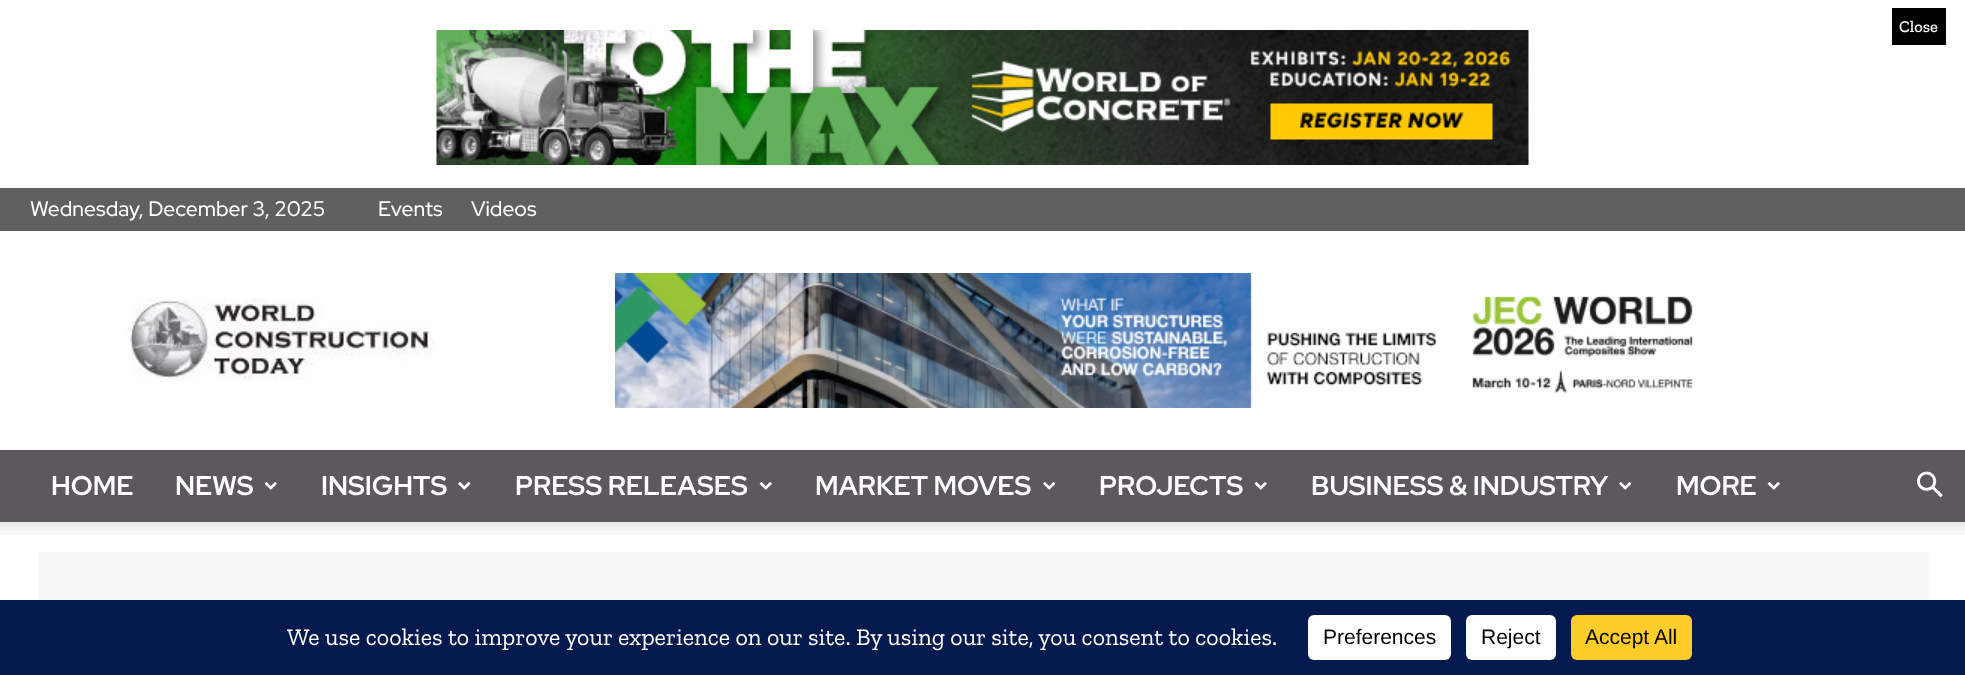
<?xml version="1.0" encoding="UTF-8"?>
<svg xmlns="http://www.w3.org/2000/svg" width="1965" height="675">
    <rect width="100%" height="100%" fill="#FFFFFF"/>
    <rect x="1892" y="8" width="54" height="37" fill="#000000"/>
    <text x="1899" y="32" font-family="Zilla Slab" font-size="16.5" font-weight="500" fill="#FFFFFF">Close</text>
    <image x="436" y="30" width="1093" height="135" href="img_01.png"/>
    <rect x="0" y="188" width="1965" height="43" fill="#606060"/>
    <text x="30" y="216" font-family="Red Hat Display" font-size="21" font-weight="500" fill="#FFFFFF">Wednesday, December 3, 2025</text>
    <text x="378" y="216" font-family="Red Hat Display" font-size="21" font-weight="500" fill="#FFFFFF">Events</text>
    <text x="471" y="216" font-family="Red Hat Display" font-size="21" font-weight="500" fill="#FFFFFF">Videos</text>
    <image x="127" y="298" width="307" height="83" href="img_02.png"/>
    <image x="615" y="273" width="1078" height="135" href="img_03.png"/>
    <rect x="0" y="450" width="1965" height="72" fill="#5C585E"/>
    <text x="51" y="495" font-family="Red Hat Display" font-size="27" font-weight="700" fill="#FFFFFF">HOME</text>
    <text x="175" y="495" font-family="Red Hat Display" font-size="27" font-weight="700" fill="#FFFFFF">NEWS</text>
    <image x="264" y="482" width="13" height="8" href="img_04.png"/>
    <text x="321" y="495" font-family="Red Hat Display" font-size="27" font-weight="700" fill="#FFFFFF">INSIGHTS</text>
    <image x="458" y="482" width="13" height="8" href="img_05.png"/>
    <text x="515" y="495" font-family="Red Hat Display" font-size="27" font-weight="700" fill="#FFFFFF">PRESS RELEASES</text>
    <image x="759" y="482" width="13" height="8" href="img_04.png"/>
    <text x="815" y="495" font-family="Red Hat Display" font-size="27" font-weight="700" fill="#FFFFFF">MARKET MOVES</text>
    <image x="1043" y="482" width="13" height="8" href="img_05.png"/>
    <text x="1099" y="495" font-family="Red Hat Display" font-size="27" font-weight="700" fill="#FFFFFF">PROJECTS</text>
    <image x="1254" y="482" width="13" height="8" href="img_04.png"/>
    <text x="1311" y="495" font-family="Red Hat Display" font-size="27" font-weight="700" fill="#FFFFFF">BUSINESS &amp; INDUSTRY</text>
    <image x="1619" y="482" width="13" height="8" href="img_05.png"/>
    <text x="1676" y="495" font-family="Red Hat Display" font-size="27" font-weight="700" fill="#FFFFFF">MORE</text>
    <image x="1767" y="482" width="13" height="8" href="img_04.png"/>
    <image x="1917" y="471" width="26" height="26" href="img_06.png"/>
    <image x="0" y="522" width="1965" height="13" href="img_07.png"/>
    <rect x="38" y="552" width="1891" height="48" fill="#F7F7F7"/>
    <rect x="0" y="600" width="1965" height="75" fill="#04194E"/>
    <text x="287" y="645" font-family="Zilla Slab" font-size="24" fill="#FFFFFF">We use cookies to improve your experience on our site. By using our site, you consent to cookies.</text>
    <rect x="1308" y="615" width="143" height="45" rx="6" fill="#FFFFFF"/>
    <text x="1323" y="644" font-family="Liberation Sans" font-size="21" fill="#000000">Preferences</text>
    <rect x="1466" y="615" width="90" height="45" rx="6" fill="#FFFFFF"/>
    <text x="1481" y="644" font-family="Liberation Sans" font-size="21" fill="#000000">Reject</text>
    <rect x="1571" y="615" width="121" height="45" rx="6" fill="#FFCD2A"/>
    <text x="1585" y="644" font-family="Liberation Sans" font-size="21" fill="#000000">Accept All</text>
</svg>
